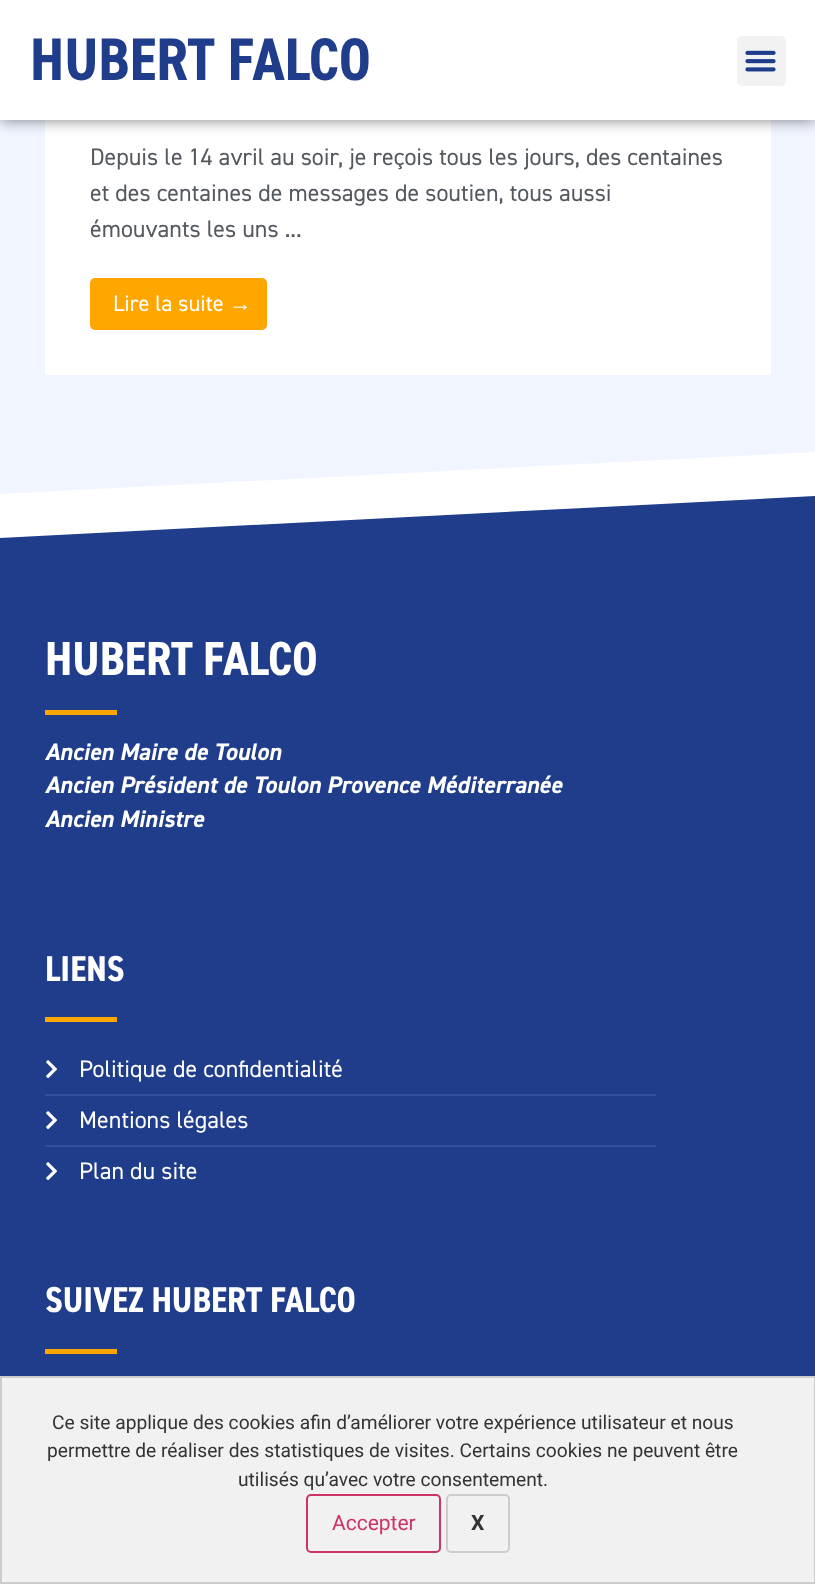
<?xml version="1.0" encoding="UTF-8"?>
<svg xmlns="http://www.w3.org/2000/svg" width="815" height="1584">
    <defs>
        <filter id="blur1" x="-50%" y="-200%" width="200%" height="500%"><feGaussianBlur stdDeviation="7.5"/></filter>
    </defs>
    <rect width="100%" height="100%" fill="#F1F5FF"/>
    <rect x="45" y="120" width="726" height="255" fill="#FFFFFF"/>
    <rect x="0" y="0" width="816" height="120" fill="#000000" fill-opacity="0.5" filter="url(#blur1)"/>
    <rect x="0" y="0" width="815" height="120" fill="#FFFFFF"/>
    <text x="30" y="80" font-family="'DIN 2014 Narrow'" font-size="60" font-weight="700" fill="#1F3D8B">HUBERT FALCO</text>
    <rect x="737" y="36" width="49" height="50" rx="5" fill="#F2F2F2"/>
    <image x="745" y="50" width="31" height="22" href="img_01.png"/>
    <text font-family="'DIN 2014'" font-size="24" fill="#54595F">
        <tspan x="90" y="165">Depuis le 14 avril au soir, je reçois tous les jours, des centaines</tspan>
        <tspan x="90" y="201">et des centaines de messages de soutien, tous aussi</tspan>
        <tspan x="90" y="237">émouvants les uns ...</tspan>
    </text>
    <rect x="90" y="278" width="177" height="52" rx="5" fill="#FFA600"/>
    <text x="113" y="311" font-family="'DIN 2014'" font-size="22.5" fill="#FFFFFF">Lire la suite</text>
    <text x="229" y="311" font-family="Liberation Sans" font-size="22.5" fill="#FFFFFF">→</text>
    <path d="M -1 494 V 497 H 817 V 452 Z" fill="#FFFFFF"/>
    <rect x="0" y="496" width="815" height="880" fill="#1F3D8B"/>
    <path d="M 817 496 V 494 H -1 V 538 Z" fill="#FFFFFF"/>
    <text x="45" y="675" font-family="'DIN 2014 Narrow'" font-size="48" font-weight="700" fill="#FFFFFF">HUBERT FALCO</text>
    <rect x="45" y="710" width="72" height="5" fill="#FFA600"/>
    <text font-family="'DIN 2014'" font-size="24" font-weight="700" font-style="italic" fill="#FFFFFF">
        <tspan x="45" y="760">Ancien Maire de Toulon</tspan>
        <tspan x="45" y="793">Ancien Président de Toulon Provence Méditerranée</tspan>
        <tspan x="45" y="827">Ancien Ministre</tspan>
    </text>
    <text x="45" y="981" font-family="'DIN 2014 Narrow'" font-size="36" font-weight="700" fill="#FFFFFF">LIENS</text>
    <rect x="45" y="1017" width="72" height="5" fill="#FFA600"/>
    <image x="46" y="1060" width="11" height="18" href="img_02.png"/>
    <text x="79" y="1077" font-family="'DIN 2014'" font-size="24" fill="#FFFFFF">Politique de confidentialité</text>
    <rect x="45" y="1094" width="611" height="2" fill="#3250A1"/>
    <image x="46" y="1111" width="11" height="18" href="img_02.png"/>
    <text x="79" y="1128" font-family="'DIN 2014'" font-size="24" fill="#FFFFFF">Mentions légales</text>
    <rect x="45" y="1145" width="611" height="2" fill="#3250A1"/>
    <image x="46" y="1162" width="11" height="18" href="img_02.png"/>
    <text x="79" y="1179" font-family="'DIN 2014'" font-size="24" fill="#FFFFFF">Plan du site</text>
    <text x="45" y="1312" font-family="'DIN 2014 Narrow'" font-size="36" font-weight="700" fill="#FFFFFF">SUIVEZ HUBERT FALCO</text>
    <rect x="45" y="1349" width="72" height="5" fill="#FFA600"/>
    <rect x="1" y="1377" width="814" height="206" fill="#F1F1F1" stroke="#CCCCCC" stroke-width="2"/>
    <text x="52" y="1429" font-family="Roboto" font-size="19.2" fill="#333333">Ce site applique des cookies afin d’améliorer votre expérience utilisateur et nous</text>
    <text x="47" y="1457" font-family="Roboto" font-size="19.2" fill="#333333">permettre de réaliser des statistiques de visites. Certains cookies ne peuvent être</text>
    <text x="238" y="1486" font-family="Roboto" font-size="19.2" fill="#333333">utilisés qu’avec votre consentement.</text>
    <rect x="307" y="1495" width="133" height="57" rx="4" fill="none" stroke="#CC3366" stroke-width="2"/>
    <text x="332" y="1530" font-family="Roboto" font-size="21" fill="#CC3366">Accepter</text>
    <rect x="447" y="1495" width="62" height="57" rx="4" fill="none" stroke="#CCCCCC" stroke-width="2"/>
    <text x="471" y="1530" font-family="Roboto" font-size="21" font-weight="700" fill="#333333">X</text>
</svg>
